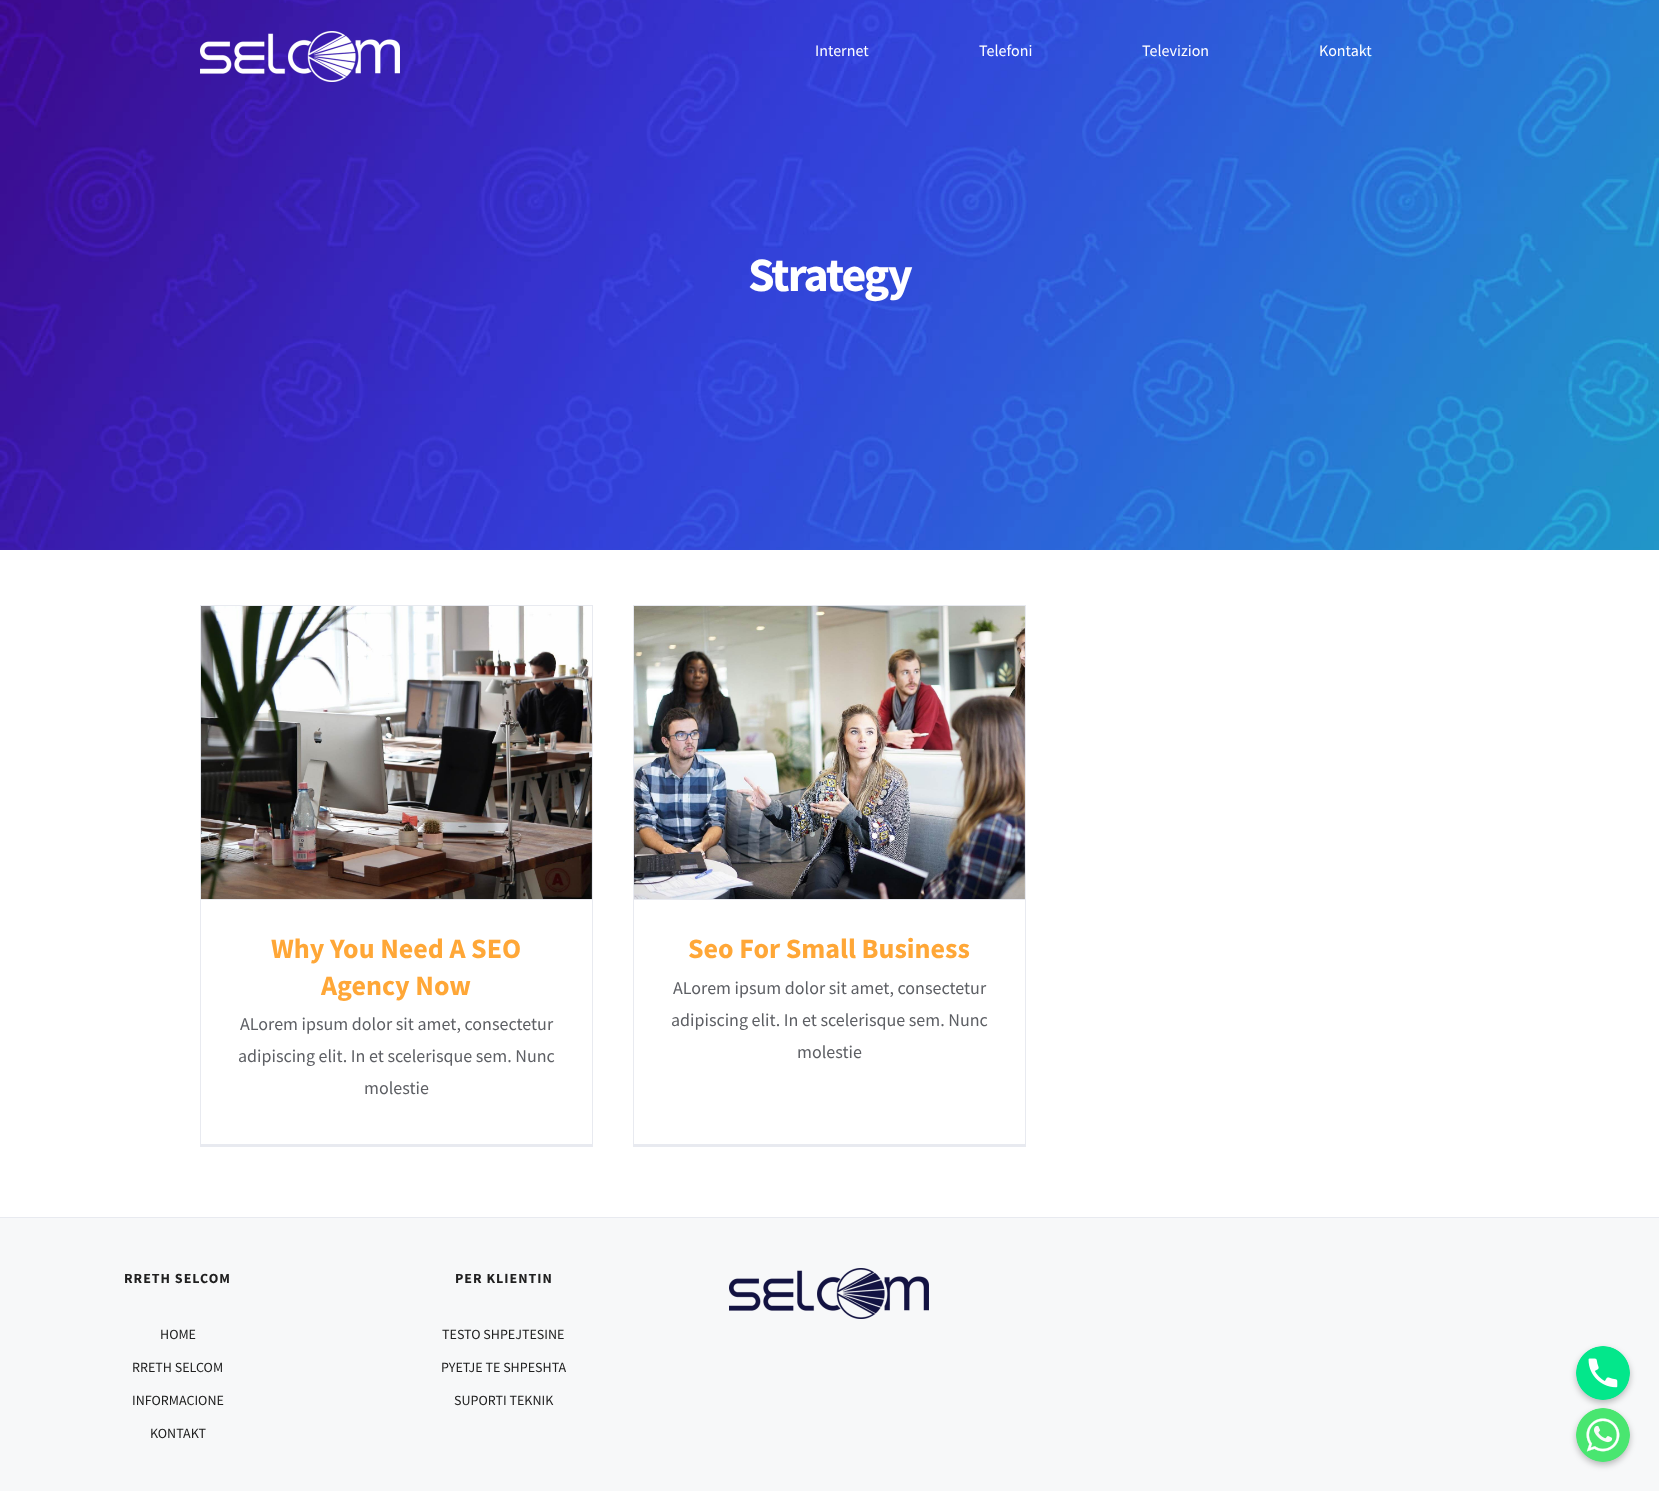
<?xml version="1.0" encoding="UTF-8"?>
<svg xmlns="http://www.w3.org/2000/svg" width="1659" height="1491">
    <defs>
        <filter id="blur1" x="-50%" y="-200%" width="200%" height="500%"><feGaussianBlur stdDeviation="3"/></filter>
    </defs>
    <rect width="100%" height="100%" fill="#FFFFFF"/>
    <image x="0" y="0" width="1659" height="550" href="img_02.png"/>
    <image x="200" y="31" width="200" height="51" href="img_01.png"/>
    <text x="815" y="56" font-family="Source Sans Pro" font-size="16" fill="#FFFFFF">Internet</text>
    <text x="979" y="56" font-family="Source Sans Pro" font-size="16" fill="#FFFFFF">Telefoni</text>
    <text x="1142" y="56" font-family="Source Sans Pro" font-size="16" fill="#FFFFFF">Televizion</text>
    <text x="1319" y="56" font-family="Source Sans Pro" font-size="16" fill="#FFFFFF">Kontakt</text>
    <text x="748" y="291" font-family="Source Sans Pro" font-size="48" font-weight="700" letter-spacing="-2" fill="#FFFFFF">Strategy</text>
    <rect x="200" y="605" width="393" height="1" fill="#E8EAF0"/>
    <rect x="592" y="605" width="1" height="542" fill="#E8EAF0"/>
    <rect x="200" y="1144" width="393" height="3" fill="#E8EAF0"/>
    <rect x="200" y="605" width="1" height="542" fill="#E8EAF0"/>
    <rect x="201" y="899" width="391" height="1" fill="#E8EAF0"/>
    <image x="201" y="606" width="391" height="293" href="img_03.png"/>
    <text x="271" y="958" font-family="Source Sans Pro" font-size="28" font-weight="700" fill="#FFA737">Why You Need A SEO</text>
    <text x="321" y="995" font-family="Source Sans Pro" font-size="28" font-weight="700" fill="#FFA737">Agency Now</text>
    <text x="240" y="1030" font-family="Source Sans Pro" font-size="18" fill="#5D5F64">ALorem ipsum dolor sit amet, consectetur</text>
    <text x="238" y="1062" font-family="Source Sans Pro" font-size="18" fill="#5D5F64">adipiscing elit. In et scelerisque sem. Nunc</text>
    <text x="364" y="1094" font-family="Source Sans Pro" font-size="18" fill="#5D5F64">molestie</text>
    <rect x="633" y="605" width="393" height="1" fill="#E8EAF0"/>
    <rect x="1025" y="605" width="1" height="542" fill="#E8EAF0"/>
    <rect x="633" y="1144" width="393" height="3" fill="#E8EAF0"/>
    <rect x="633" y="605" width="1" height="542" fill="#E8EAF0"/>
    <rect x="634" y="899" width="391" height="1" fill="#E8EAF0"/>
    <image x="634" y="606" width="391" height="293" href="img_04.png"/>
    <text x="688" y="958" font-family="Source Sans Pro" font-size="28" font-weight="700" fill="#FFA737">Seo For Small Business</text>
    <text x="673" y="994" font-family="Source Sans Pro" font-size="18" fill="#5D5F64">ALorem ipsum dolor sit amet, consectetur</text>
    <text x="671" y="1026" font-family="Source Sans Pro" font-size="18" fill="#5D5F64">adipiscing elit. In et scelerisque sem. Nunc</text>
    <text x="797" y="1058" font-family="Source Sans Pro" font-size="18" fill="#5D5F64">molestie</text>
    <rect x="0" y="1218" width="1659" height="273" fill="#F7F8F9"/>
    <rect x="0" y="1217" width="1659" height="1" fill="#E8EAF0"/>
    <text x="124" y="1283" font-family="Source Sans Pro" font-size="14" font-weight="700" letter-spacing="1" fill="#202020">RRETH SELCOM</text>
    <text x="160" y="1339" font-family="Source Sans Pro" font-size="14" fill="#202020">HOME</text>
    <text x="132" y="1372" font-family="Source Sans Pro" font-size="14" fill="#202020">RRETH SELCOM</text>
    <text x="132" y="1405" font-family="Source Sans Pro" font-size="14" fill="#202020">INFORMACIONE</text>
    <text x="150" y="1438" font-family="Source Sans Pro" font-size="14" fill="#202020">KONTAKT</text>
    <text x="455" y="1283" font-family="Source Sans Pro" font-size="14" font-weight="700" letter-spacing="1" fill="#202020">PER KLIENTIN</text>
    <text x="442" y="1339" font-family="Source Sans Pro" font-size="14" fill="#202020">TESTO SHPEJTESINE</text>
    <text x="441" y="1372" font-family="Source Sans Pro" font-size="14" fill="#202020">PYETJE TE SHPESHTA</text>
    <text x="454" y="1405" font-family="Source Sans Pro" font-size="14" fill="#202020">SUPORTI TEKNIK</text>
    <image x="729" y="1268" width="200" height="51" href="img_05.png"/>
    <rect x="1576" y="1349" width="54" height="54" rx="27" fill="#000000" fill-opacity="0.25" filter="url(#blur1)"/>
    <image x="1576" y="1346" width="54" height="54" href="img_06.png"/>
    <rect x="1576" y="1411" width="54" height="54" rx="27" fill="#000000" fill-opacity="0.25" filter="url(#blur1)"/>
    <image x="1576" y="1408" width="54" height="54" href="img_07.png"/>
</svg>
